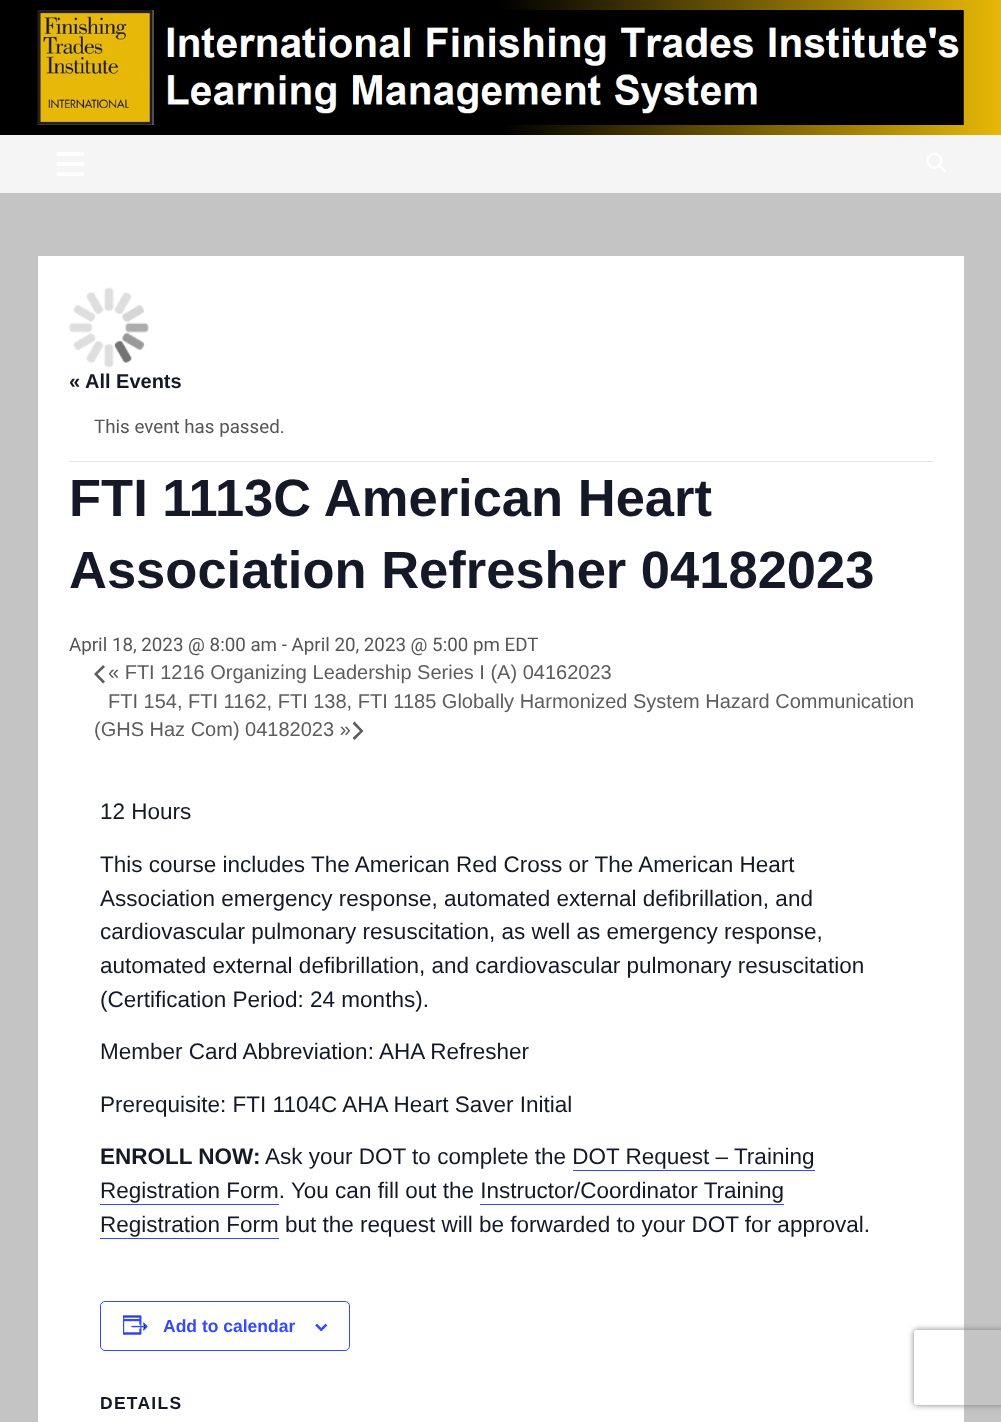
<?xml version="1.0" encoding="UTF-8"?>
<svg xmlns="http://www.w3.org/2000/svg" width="1001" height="1422">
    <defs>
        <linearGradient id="g1" gradientUnits="userSpaceOnUse" x1="0" y1="68" x2="1001" y2="67"><stop offset="0" stop-color="#000000"/><stop offset="0.5" stop-color="#000000"/><stop offset="1" stop-color="#E7B808"/></linearGradient>
        <clipPath id="clip1"><rect x="353" y="721" width="11" height="19"/></clipPath>
        <clipPath id="clip2"><path d="M 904 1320 H 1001 V 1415 H 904 Z M 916.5 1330 H 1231.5 C 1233 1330 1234 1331 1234 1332.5 V 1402.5 C 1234 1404 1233 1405 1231.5 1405 H 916.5 C 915 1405 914 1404 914 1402.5 V 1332.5 C 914 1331 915 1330 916.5 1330 Z" clip-rule="evenodd"/></clipPath>
        <filter id="blur1" x="-50%" y="-200%" width="200%" height="500%"><feGaussianBlur stdDeviation="3"/></filter>
    </defs>
    <rect width="100%" height="100%" fill="#C4C4C4"/>
    <rect x="0" y="0" width="1001" height="135" fill="url(#g1)"/>
    <image x="37" y="10" width="927" height="115" href="img_01.png"/>
    <rect x="0" y="135" width="1001" height="58" fill="#F5F5F5"/>
    <image x="56" y="152" width="29" height="24" href="img_02.png"/>
    <image x="926" y="152" width="20" height="20" href="img_03.png"/>
    <rect x="38" y="256" width="926" height="1166" fill="#FFFFFF"/>
    <image x="68" y="287" width="81" height="81" href="img_04.png"/>
    <text x="69" y="388" font-family="Liberation Sans" font-size="20" font-weight="700" fill="#141827">« All Events</text>
    <rect x="69" y="461" width="864" height="1" fill="#E4E4E4"/>
    <text x="94" y="433" font-family="Roboto" font-size="18.75" fill="#555555">This event has passed.</text>
    <text font-family="Liberation Sans" font-size="52.5" font-weight="700" fill="#141827">
        <tspan x="69" y="516">FTI 1113C American Heart</tspan>
        <tspan x="69" y="588">Association Refresher 04182023</tspan>
    </text>
    <text x="69" y="651" font-family="Roboto" font-size="18.75" fill="#555555">April 18, 2023 @ 8:00 am - April 20, 2023 @ 5:00 pm EDT</text>
    <path d="M 105 681.5 L 103 683.5 L 94 674 L 103 665 L 105 667 L 97.5 674 Z" fill="#5D5D5D"/>
    <text font-family="Liberation Sans" font-size="20" fill="#5D5D5D">
        <tspan x="108" y="679">« FTI 1216 Organizing Leadership Series I (A) 04162023</tspan>
        <tspan x="108" y="708">FTI 154, FTI 1162, FTI 138, FTI 1185 Globally Harmonized System Hazard Communication</tspan>
    </text>
    <text x="94" y="736" font-family="Liberation Sans" font-size="20" fill="#5D5D5D">(GHS Haz Com) 04182023 »</text>
    <g clip-path="url(#clip1)">
        <path d="M 352.5 723.5 L 354.5 721.5 L 363.5 731 L 354.5 740 L 352.5 738 L 360 731 Z" fill="#5D5D5D"/>
    </g>
    <text x="100" y="819" font-family="Liberation Sans" font-size="22.5" fill="#141827">12 Hours</text>
    <text font-family="Liberation Sans" font-size="22.5" fill="#141827">
        <tspan x="100" y="872">This course includes The American Red Cross or The American Heart</tspan>
        <tspan x="100" y="906">Association emergency response, automated external defibrillation, and</tspan>
        <tspan x="100" y="939">cardiovascular pulmonary resuscitation, as well as emergency response,</tspan>
        <tspan x="100" y="973">automated external defibrillation, and cardiovascular pulmonary resuscitation</tspan>
        <tspan x="100" y="1007">(Certification Period: 24 months).</tspan>
    </text>
    <text x="100" y="1059" font-family="Liberation Sans" font-size="22.5" fill="#141827">Member Card Abbreviation: AHA Refresher</text>
    <text x="100" y="1112" font-family="Liberation Sans" font-size="22.5" fill="#141827">Prerequisite: FTI 1104C AHA Heart Saver Initial</text>
    <text x="100" y="1164" font-family="Liberation Sans" font-size="22.5" font-weight="700" fill="#141827">ENROLL NOW:</text>
    <text x="265" y="1164" font-family="Liberation Sans" font-size="22.5" fill="#141827">Ask your DOT to complete the DOT Request – Training</text>
    <text x="100" y="1198" font-family="Liberation Sans" font-size="22.5" fill="#141827">Registration Form. You can fill out the Instructor/Coordinator Training</text>
    <rect x="573" y="1170" width="242" height="1" fill="#334AFF"/>
    <rect x="100" y="1204" width="179" height="1" fill="#334AFF"/>
    <text x="100" y="1232" font-family="Liberation Sans" font-size="22.5" fill="#141827">Registration Form but the request will be forwarded to your DOT for approval.</text>
    <rect x="480" y="1204" width="304" height="1" fill="#334AFF"/>
    <rect x="100" y="1238" width="179" height="1" fill="#334AFF"/>
    <rect x="100.5" y="1301.5" width="249" height="49" rx="4.5" fill="none" stroke="#334AFF"/>
    <image x="123" y="1315" width="25" height="20" href="img_05.png"/>
    <text x="163" y="1332" font-family="Liberation Sans" font-size="17.5" font-weight="700" fill="#334AFF">Add to calendar</text>
    <image x="315" y="1324" width="13" height="7" href="img_06.png"/>
    <text x="100" y="1409" font-family="Liberation Sans" font-size="17.5" font-weight="700" letter-spacing="1.25" fill="#141827">DETAILS</text>
    <g clip-path="url(#clip2)">
        <rect x="914" y="1330" width="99" height="75" rx="2.5" fill="#808080" filter="url(#blur1)"/>
    </g>
</svg>
